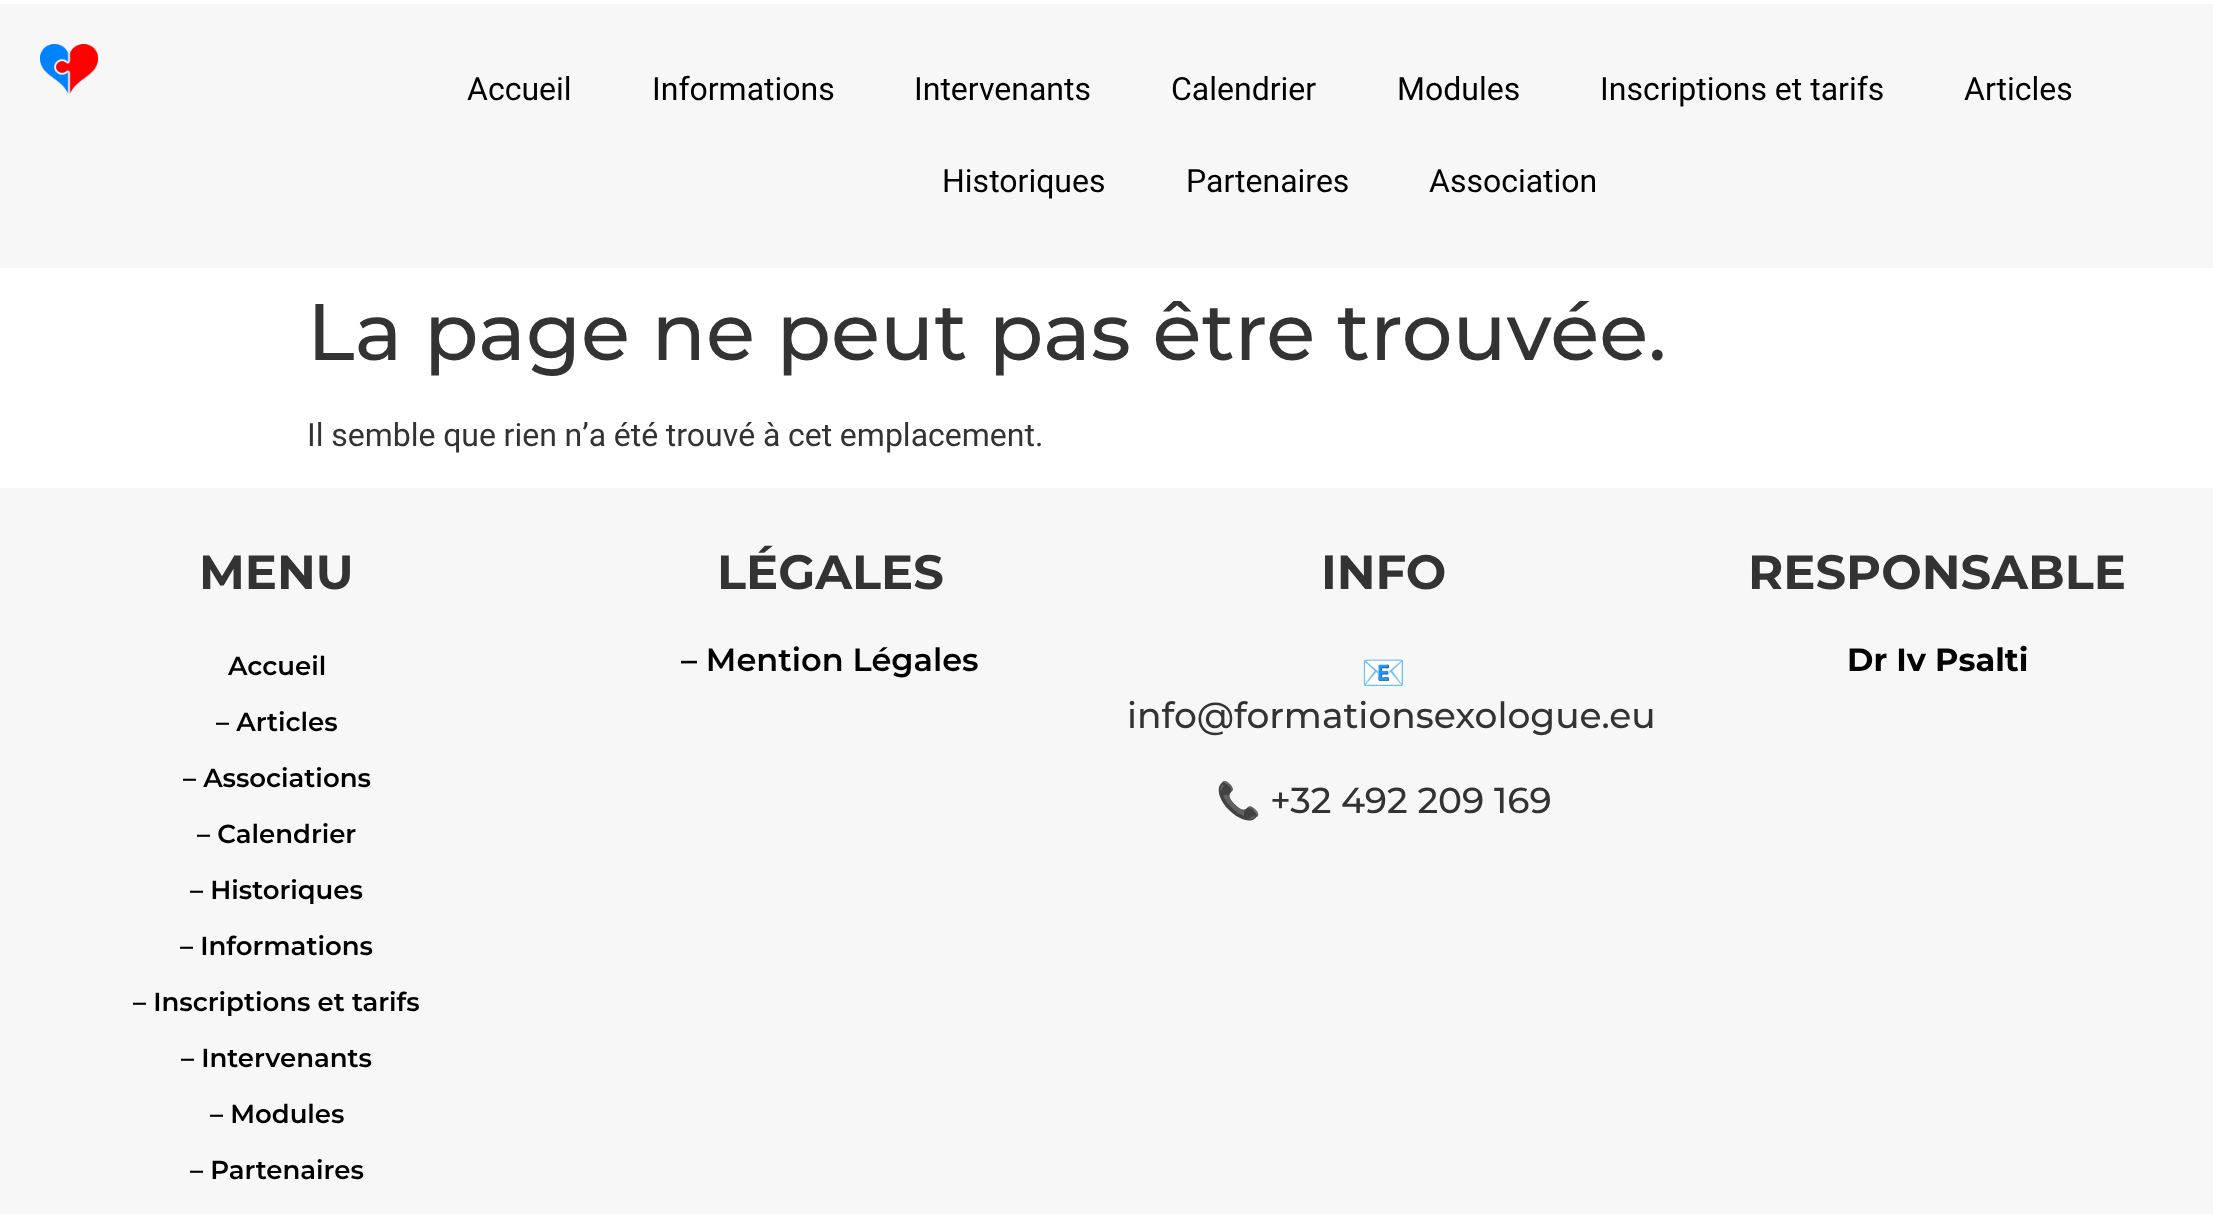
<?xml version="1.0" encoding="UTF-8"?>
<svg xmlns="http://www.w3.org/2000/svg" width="2213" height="1214">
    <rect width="100%" height="100%" fill="#FFFFFF"/>
    <rect x="0" y="4" width="2213" height="264" fill="#F7F7F7"/>
    <image x="40" y="44" width="58" height="50" href="img_01.png"/>
    <text x="467" y="100" font-family="Roboto" font-size="32" fill="#000000">Accueil</text>
    <text x="652" y="100" font-family="Roboto" font-size="32" fill="#000000">Informations</text>
    <text x="914" y="100" font-family="Roboto" font-size="32" fill="#000000">Intervenants</text>
    <text x="1171" y="100" font-family="Roboto" font-size="32" fill="#000000">Calendrier</text>
    <text x="1397" y="100" font-family="Roboto" font-size="32" fill="#000000">Modules</text>
    <text x="1600" y="100" font-family="Roboto" font-size="32" fill="#000000">Inscriptions et tarifs</text>
    <text x="1964" y="100" font-family="Roboto" font-size="32" fill="#000000">Articles</text>
    <text x="942" y="192" font-family="Roboto" font-size="32" fill="#000000">Historiques</text>
    <text x="1186" y="192" font-family="Roboto" font-size="32" fill="#000000">Partenaires</text>
    <text x="1429" y="192" font-family="Roboto" font-size="32" fill="#000000">Association</text>
    <text x="307" y="360" font-family="Montserrat" font-size="80" font-weight="500" fill="#333333">La page ne peut pas être trouvée.</text>
    <text x="307" y="446" word-spacing="-0.25" font-family="Roboto" font-size="32" fill="#333333">Il semble que rien n’a été trouvé à cet emplacement.</text>
    <rect x="0" y="488" width="2213" height="726" fill="#F7F7F7"/>
    <text x="199" y="589" font-family="Montserrat" font-size="48" font-weight="700" fill="#333333">MENU</text>
    <text x="228" y="675" font-family="Montserrat" font-size="26" font-weight="600" fill="#000000">Accueil</text>
    <text x="216" y="731" font-family="Montserrat" font-size="26" font-weight="600" fill="#000000">– Articles</text>
    <text x="183" y="787" font-family="Montserrat" font-size="26" font-weight="600" fill="#000000">– Associations</text>
    <text x="197" y="843" font-family="Montserrat" font-size="26" font-weight="600" fill="#000000">– Calendrier</text>
    <text x="190" y="899" font-family="Montserrat" font-size="26" font-weight="600" fill="#000000">– Historiques</text>
    <text x="180" y="955" font-family="Montserrat" font-size="26" font-weight="600" fill="#000000">– Informations</text>
    <text x="133" y="1011" font-family="Montserrat" font-size="26" font-weight="600" fill="#000000">– Inscriptions et tarifs</text>
    <text x="181" y="1067" font-family="Montserrat" font-size="26" font-weight="600" fill="#000000">– Intervenants</text>
    <text x="210" y="1123" font-family="Montserrat" font-size="26" font-weight="600" fill="#000000">– Modules</text>
    <text x="190" y="1179" font-family="Montserrat" font-size="26" font-weight="600" fill="#000000">– Partenaires</text>
    <text x="717" y="589" font-family="Montserrat" font-size="48" font-weight="700" fill="#333333">LÉGALES</text>
    <text x="681" y="671" font-family="Montserrat" font-size="32" font-weight="600" fill="#000000">– Mention Légales</text>
    <text x="1321" y="589" font-family="Montserrat" font-size="48" font-weight="700" fill="#333333">INFO</text>
    <text x="1361" y="685" font-family="Noto Color Emoji" font-size="36" fill="#333333">📧</text>
    <text x="1127" y="728" font-family="Montserrat" font-size="36" font-weight="500" fill="#333333">info@formationsexologue.eu</text>
    <text x="1216" y="813" font-family="Noto Color Emoji" font-size="36" fill="#333333">📞</text>
    <text x="1270" y="813" font-family="Montserrat" font-size="36" font-weight="500" fill="#333333">+32 492 209 169</text>
    <text x="1748" y="589" font-family="Montserrat" font-size="48" font-weight="700" fill="#333333">RESPONSABLE</text>
    <text x="1847" y="671" font-family="Montserrat" font-size="32" font-weight="700" fill="#000000">Dr Iv Psalti</text>
</svg>
